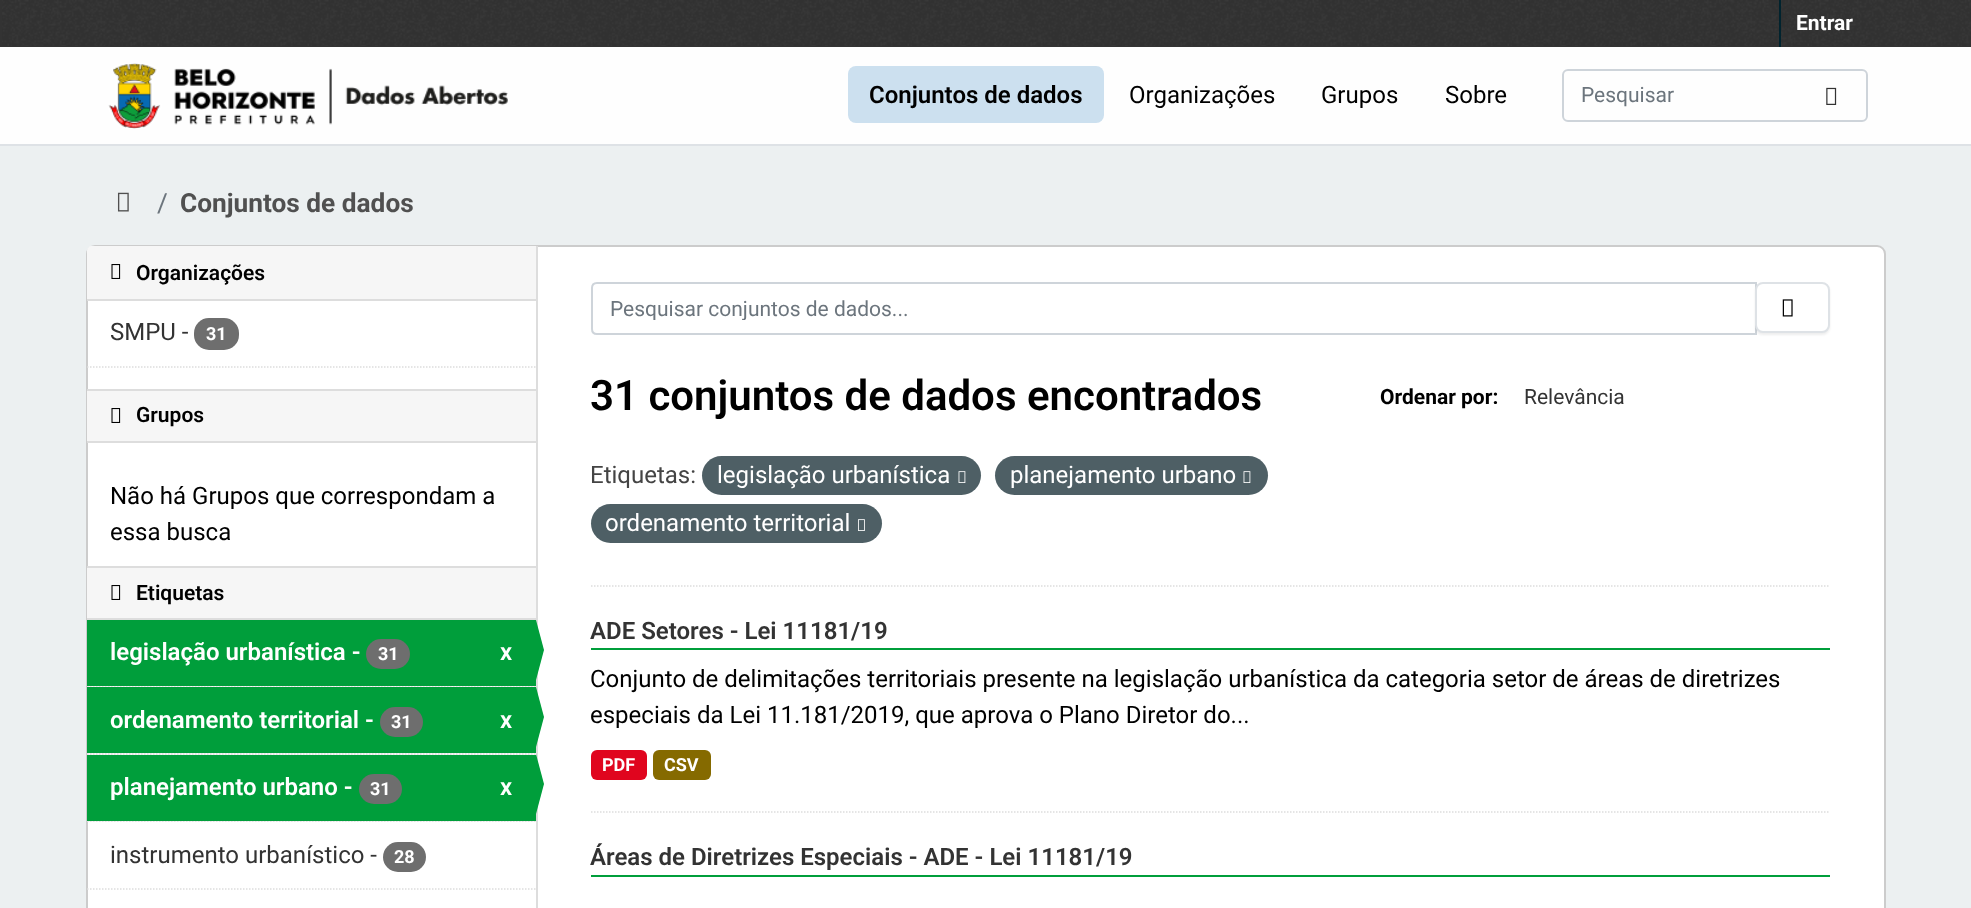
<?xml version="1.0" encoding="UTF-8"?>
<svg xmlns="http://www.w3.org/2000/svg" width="1971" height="908">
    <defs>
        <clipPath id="clip1"><rect x="611" y="296" width="1126" height="24"/></clipPath>
        <filter id="blur1" x="-50%" y="-200%" width="200%" height="500%"><feGaussianBlur stdDeviation="1"/></filter>
    </defs>
    <rect width="100%" height="100%" fill="#ECF0F1"/>
    <rect x="0" y="0" width="1971" height="47" fill="#333333"/>
    <image x="2" y="0" width="1969" height="46" href="img_01.png"/>
    <rect x="1779" y="0" width="2" height="47" fill="#00232E"/>
    <text x="1796" y="30" font-family="Roboto" font-size="21" font-weight="700" fill="#FFFFFF">Entrar</text>
    <rect x="0" y="47" width="1971" height="97" fill="#FEFEFE"/>
    <rect x="0" y="144" width="1971" height="2" fill="#DEE2E6"/>
    <image x="108" y="63" width="400" height="66" href="img_02.png"/>
    <rect x="848" y="66" width="256" height="57" rx="8" fill="#CCE0EF"/>
    <text x="869" y="103" font-family="Roboto" font-size="24" font-weight="600" fill="#000000">Conjuntos de dados</text>
    <text x="1129" y="103" font-family="Roboto" font-size="24" fill="#000000">Organizações</text>
    <text x="1321" y="103" font-family="Roboto" font-size="24" fill="#000000">Grupos</text>
    <text x="1445" y="103" font-family="Roboto" font-size="24" fill="#000000">Sobre</text>
    <rect x="1563" y="70" width="304" height="51" rx="5" fill="none" stroke="#CED4DA" stroke-width="2"/>
    <text x="1581" y="102" font-family="Roboto" font-size="21" fill="#6C757D">Pesquisar</text>
    <image x="1826" y="87" width="11" height="18" href="img_03.png"/>
    <image x="117" y="192" width="12" height="20" href="img_04.png"/>
    <text x="157" y="212" font-family="Roboto" font-size="26.25" fill="#6C757D">/</text>
    <text x="180" y="212" font-family="Roboto" font-size="26.25" font-weight="700" fill="#505050">Conjuntos de dados</text>
    <rect x="87" y="246" width="1798" height="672" rx="8" fill="#FFFFFF" stroke="#CCCCCC" stroke-width="2"/>
    <path d="M 92 246 H 536 V 300 H 87 V 251 C 87 248 89 246 92 246 Z" fill="#F6F6F6"/>
    <rect x="87" y="299" width="449" height="2" fill="#DDDDDD"/>
    <image x="111" y="264" width="10" height="15" href="img_05.png"/>
    <text x="136" y="280" font-family="Roboto" font-size="21" font-weight="600" fill="#000000">Organizações</text>
    <text x="110" y="340" font-family="Roboto" font-size="24" fill="#333333">SMPU -</text>
    <rect x="194" y="318" width="45" height="32" rx="15" fill="#6E6E6E"/>
    <text x="206" y="340" font-family="Roboto" font-size="18" font-weight="700" fill="#FFFFFF">31</text>
    <path d="M 87 367 H 535.5" fill="none" stroke="#DDDDDD" stroke-width="1.5" stroke-dasharray="1.5 1.5"/>
    <rect x="87" y="391" width="449" height="50" fill="#F6F6F6"/>
    <rect x="87" y="389" width="449" height="2" fill="#DDDDDD"/>
    <rect x="87" y="441" width="449" height="2" fill="#DDDDDD"/>
    <image x="111" y="408" width="10" height="15" href="img_05.png"/>
    <text x="136" y="422" font-family="Roboto" font-size="21" font-weight="600" fill="#000000">Grupos</text>
    <text font-family="Roboto" font-size="24" fill="#000000">
        <tspan x="110" y="504">Não há Grupos que correspondam a</tspan>
        <tspan x="110" y="540">essa busca</tspan>
    </text>
    <rect x="87" y="568" width="449" height="50" fill="#F6F6F6"/>
    <rect x="87" y="566" width="449" height="2" fill="#DDDDDD"/>
    <rect x="87" y="618" width="449" height="2" fill="#DDDDDD"/>
    <image x="111" y="585" width="10" height="15" href="img_05.png"/>
    <text x="136" y="600" font-family="Roboto" font-size="21" font-weight="600" fill="#000000">Etiquetas</text>
    <rect x="87" y="686" width="449" height="1" fill="#F6F6F6"/>
    <path d="M 87 686 H 535.5" fill="none" stroke="#DDDDDD" stroke-width="1.5" stroke-dasharray="1.5 1.5"/>
    <rect x="87" y="620" width="449" height="66" fill="#009E3B"/>
    <text x="110" y="660" font-family="Roboto" font-size="24" font-weight="600" fill="#FFFFFF">legislação urbanística -</text>
    <rect x="366" y="639" width="44" height="30" rx="15" fill="#6E6E6E"/>
    <text x="378" y="660" font-family="Roboto" font-size="18" font-weight="700" fill="#FFFFFF">31</text>
    <text x="500" y="660" font-family="Roboto" font-size="24" font-weight="600" fill="#FFFFFF">x</text>
    <rect x="536" y="246" width="2" height="662" fill="#DDDDDD"/>
    <path d="M 536 680 V 620 L 544 650 Z" fill="#009E3B"/>
    <rect x="87" y="753" width="449" height="2" fill="#F6F6F6"/>
    <path d="M 87 754 H 535.5" fill="none" stroke="#DDDDDD" stroke-width="1.5" stroke-dasharray="1.5 1.5"/>
    <rect x="87" y="687" width="449" height="66" fill="#009E3B"/>
    <text x="110" y="728" font-family="Roboto" font-size="24" font-weight="600" fill="#FFFFFF">ordenamento territorial -</text>
    <rect x="380" y="707" width="43" height="30" rx="15" fill="#6E6E6E"/>
    <text x="391" y="728" font-family="Roboto" font-size="18" font-weight="700" fill="#FFFFFF">31</text>
    <text x="500" y="728" font-family="Roboto" font-size="24" font-weight="600" fill="#FFFFFF">x</text>
    <path d="M 536 747 V 687 L 544 717 Z" fill="#009E3B"/>
    <rect x="87" y="821" width="449" height="1" fill="#F6F6F6"/>
    <path d="M 87 821 H 535.5" fill="none" stroke="#DDDDDD" stroke-width="1.5" stroke-dasharray="1.5 1.5"/>
    <rect x="87" y="755" width="449" height="66" fill="#009E3B"/>
    <text x="110" y="795" font-family="Roboto" font-size="24" font-weight="600" fill="#FFFFFF">planejamento urbano -</text>
    <rect x="359" y="774" width="43" height="30" rx="15" fill="#6E6E6E"/>
    <text x="370" y="795" font-family="Roboto" font-size="18" font-weight="700" fill="#FFFFFF">31</text>
    <text x="500" y="795" font-family="Roboto" font-size="24" font-weight="600" fill="#FFFFFF">x</text>
    <path d="M 536 814 V 754 L 544 784 Z" fill="#009E3B"/>
    <path d="M 87 889 H 535.5" fill="none" stroke="#DDDDDD" stroke-width="1.5" stroke-dasharray="1.5 1.5"/>
    <text x="110" y="863" font-family="Roboto" font-size="24" fill="#333333">instrumento urbanístico -</text>
    <rect x="383" y="842" width="43" height="30" rx="15" fill="#6E6E6E"/>
    <text x="394" y="863" font-family="Roboto" font-size="18" font-weight="700" fill="#FFFFFF">28</text>
    <path d="M 591 586 H 1830" fill="none" stroke="#DDDDDD" stroke-width="1.5" stroke-dasharray="1.5 1.5"/>
    <path d="M 597 283 H 1756 V 334 H 597 C 594 334 592 332 592 329 V 288 C 592 285 594 283 597 283 Z" fill="none" stroke="#CED4DA" stroke-width="2"/>
    <g clip-path="url(#clip1)">
        <text x="610" y="316" font-family="Roboto" font-size="21" fill="#6C757D">Pesquisar conjuntos de dados...</text>
    </g>
    <rect x="1755" y="284" width="75" height="51" rx="8" fill="#000000" fill-opacity="0.07" filter="url(#blur1)"/>
    <rect x="1756" y="283" width="73" height="49" rx="7" fill="#FFFFFF" stroke="#DEE2E6" stroke-width="2"/>
    <image x="1782" y="299" width="11" height="18" href="img_06.png"/>
    <text x="590" y="410" font-family="Roboto" font-size="42" font-weight="600" fill="#000000">31 conjuntos de dados encontrados</text>
    <text x="1380" y="404" font-family="Roboto" font-size="21" font-weight="700" fill="#000000">Ordenar por:</text>
    <text x="1524" y="404" font-family="Roboto" font-size="21" fill="#333333">Relevância</text>
    <text x="590" y="483" font-family="Roboto" font-size="24" fill="#444444">Etiquetas:</text>
    <rect x="702" y="456" width="279" height="39" rx="19.5" fill="#4E5F65"/>
    <text x="717" y="483" font-family="Roboto" font-size="24" fill="#FFFFFF">legislação urbanística</text>
    <image x="958" y="471" width="8" height="12" href="img_07.png"/>
    <rect x="995" y="456" width="273" height="39" rx="19.5" fill="#4E5F65"/>
    <text x="1010" y="483" font-family="Roboto" font-size="24" fill="#FFFFFF">planejamento urbano</text>
    <image x="1243" y="471" width="8" height="12" href="img_07.png"/>
    <rect x="591" y="504" width="291" height="39" rx="19.5" fill="#4E5F65"/>
    <text x="605" y="531" font-family="Roboto" font-size="24" fill="#FFFFFF">ordenamento territorial</text>
    <image x="858" y="519" width="7" height="12" href="img_08.png"/>
    <path d="M 591 812 H 1830" fill="none" stroke="#DDDDDD" stroke-width="1.5" stroke-dasharray="1.5 1.5"/>
    <rect x="591" y="648" width="1239" height="2" fill="#009E3B"/>
    <text x="590" y="639" font-family="Roboto" font-size="24" font-weight="600" fill="#333333">ADE Setores - Lei 11181/19</text>
    <text font-family="Roboto" font-size="24" fill="#000000">
        <tspan x="590" y="687">Conjunto de delimitações territoriais presente na legislação urbanística da categoria setor de áreas de diretrizes</tspan>
        <tspan x="590" y="723">especiais da Lei 11.181/2019, que aprova o Plano Diretor do...</tspan>
    </text>
    <rect x="591" y="750" width="56" height="30" rx="6" fill="#E0051E"/>
    <text x="602" y="771" font-family="Roboto" font-size="18" font-weight="700" fill="#FFFFFF">PDF</text>
    <rect x="653" y="750" width="58" height="30" rx="6" fill="#856A00"/>
    <text x="664" y="771" font-family="Roboto" font-size="18" font-weight="700" fill="#FFFFFF">CSV</text>
    <rect x="591" y="875" width="1239" height="2" fill="#009E3B"/>
    <text x="590" y="865" font-family="Roboto" font-size="24" font-weight="600" fill="#333333">Áreas de Diretrizes Especiais - ADE - Lei 11181/19</text>
</svg>
